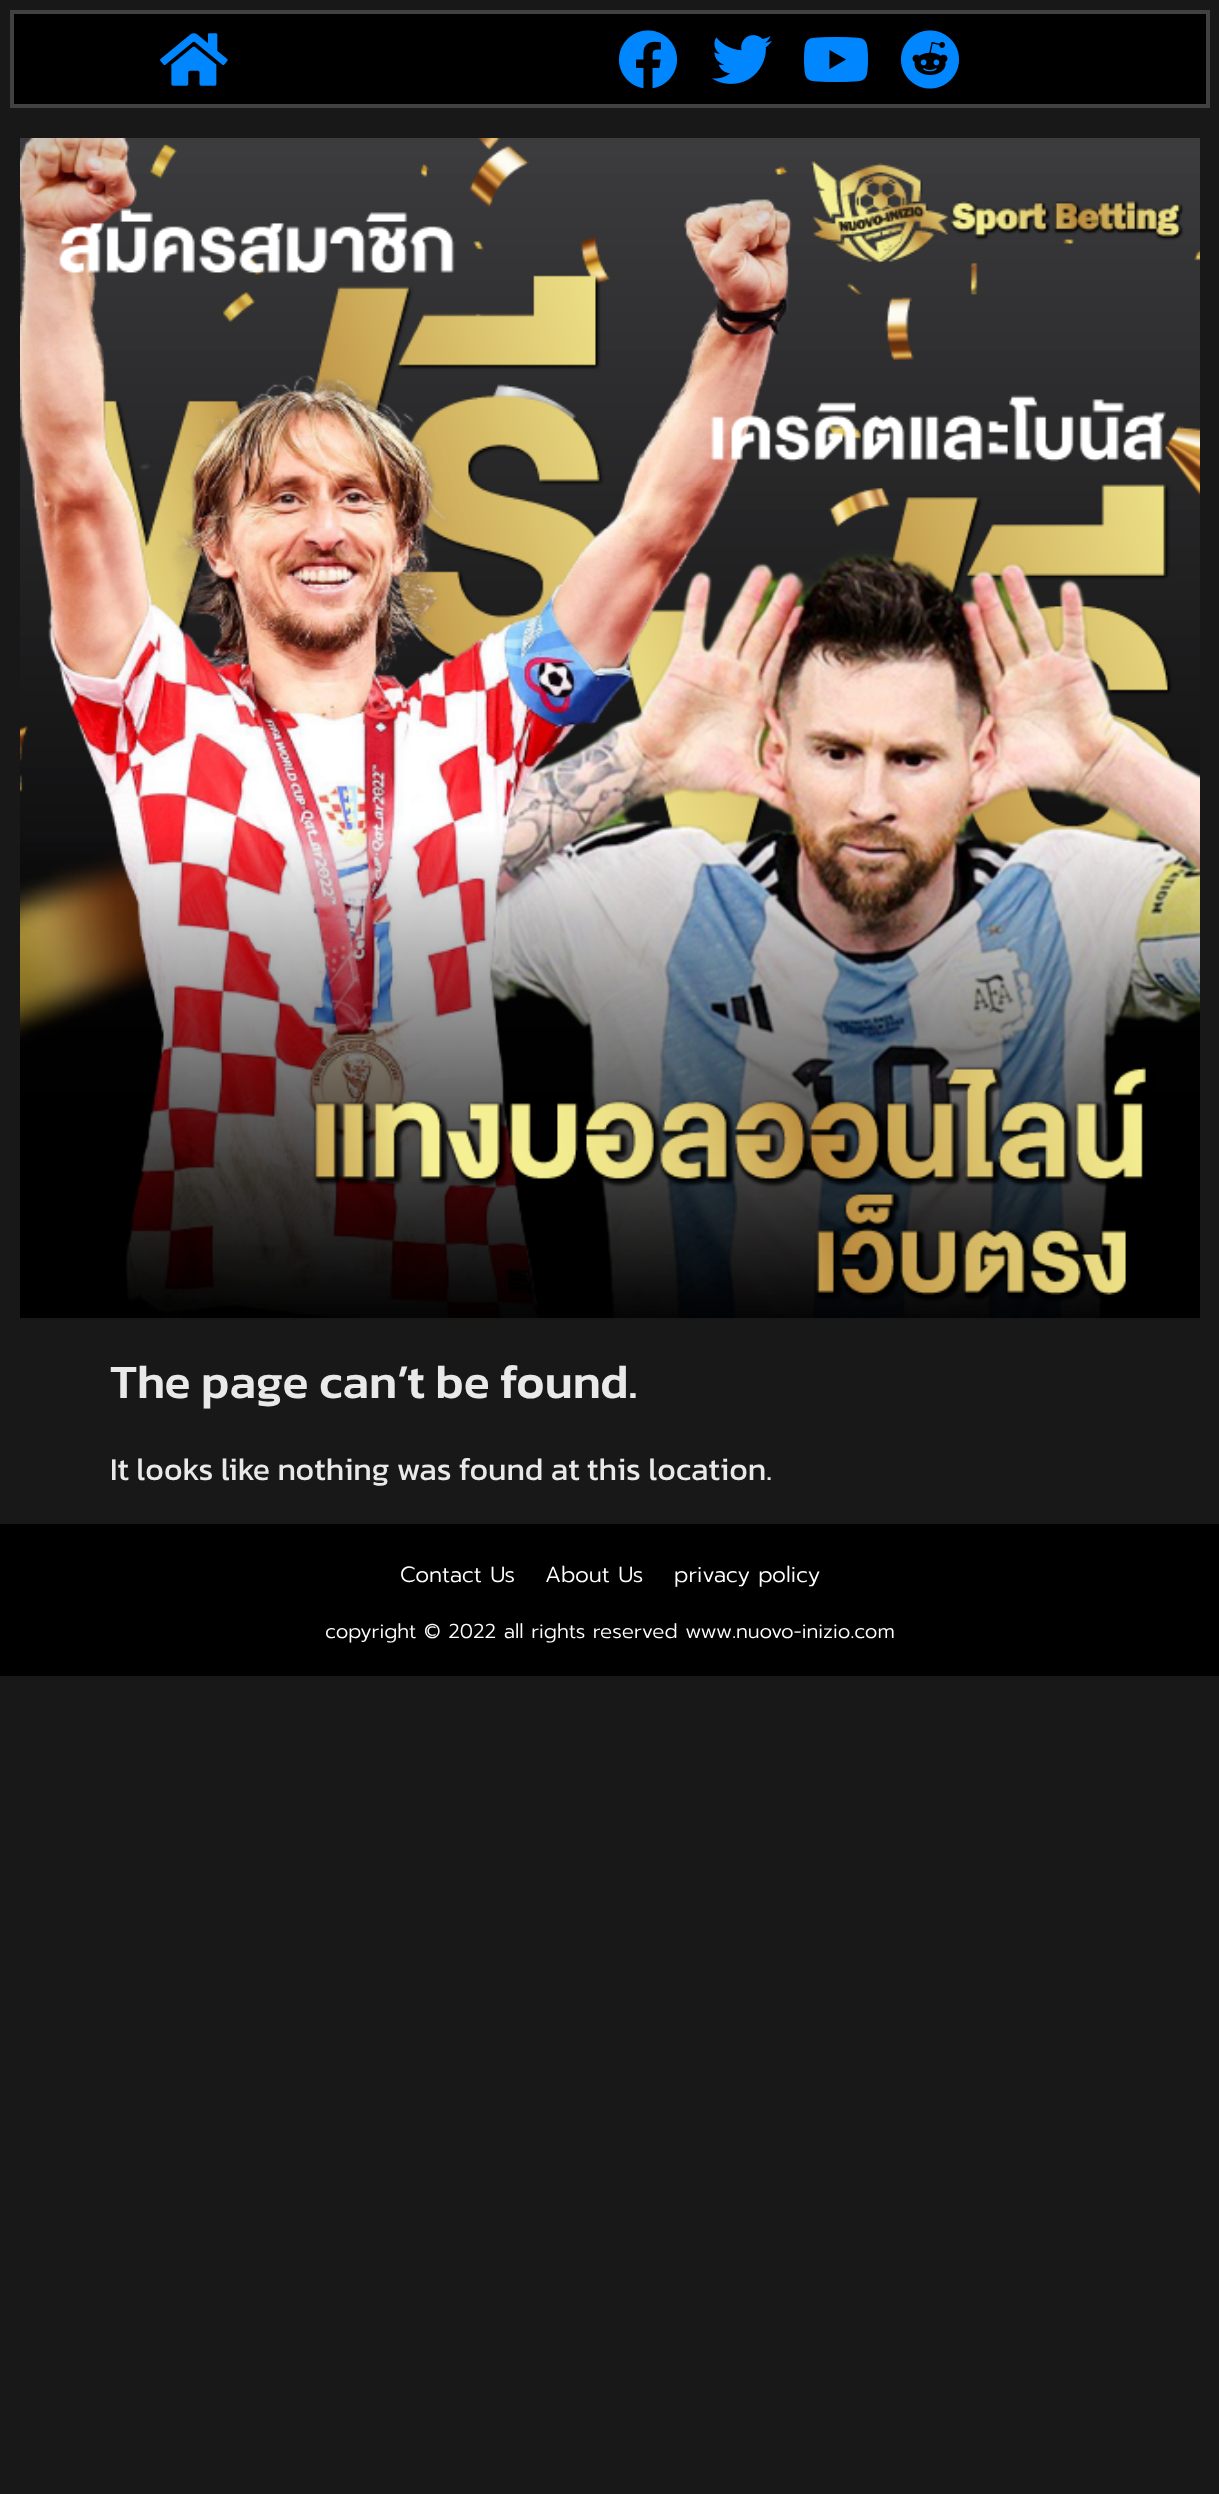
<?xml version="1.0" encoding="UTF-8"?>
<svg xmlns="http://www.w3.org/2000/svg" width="1219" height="2494">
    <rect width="100%" height="100%" fill="#181818"/>
    <rect x="12" y="12" width="1196" height="94" fill="#000000" stroke="#414141" stroke-width="4"/>
    <image x="160" y="33" width="68" height="53" href="img_01.png"/>
    <image x="618" y="30" width="60" height="59" href="img_02.png"/>
    <image x="712" y="35" width="60" height="49" href="img_03.png"/>
    <image x="804" y="37" width="64" height="45" href="img_04.png"/>
    <image x="900" y="30" width="60" height="59" href="img_05.png"/>
    <image x="20" y="138" width="1180" height="1180" href="img_06.png"/>
    <text x="110" y="1398" font-family="Kanit" font-size="48" font-weight="500" fill="#E9E9E9">The page can’t be found.</text>
    <text x="110" y="1480" font-family="Kanit" font-size="32" fill="#E9E9E9">It looks like nothing was found at this location.</text>
    <rect x="0" y="1524" width="1219" height="152" fill="#000000"/>
    <text x="400" y="1582" font-family="Prompt" font-size="22" font-weight="300" fill="#FFFFFF">Contact Us</text>
    <text x="545" y="1582" font-family="Prompt" font-size="22" font-weight="300" fill="#FFFFFF">About Us</text>
    <text x="674" y="1582" font-family="Prompt" font-size="22" font-weight="300" fill="#FFFFFF">privacy policy</text>
    <text x="325" y="1638" font-family="Prompt" font-size="20" font-weight="300" fill="#FFFFFF">copyright © 2022 all rights reserved www.nuovo-inizio.com</text>
</svg>
